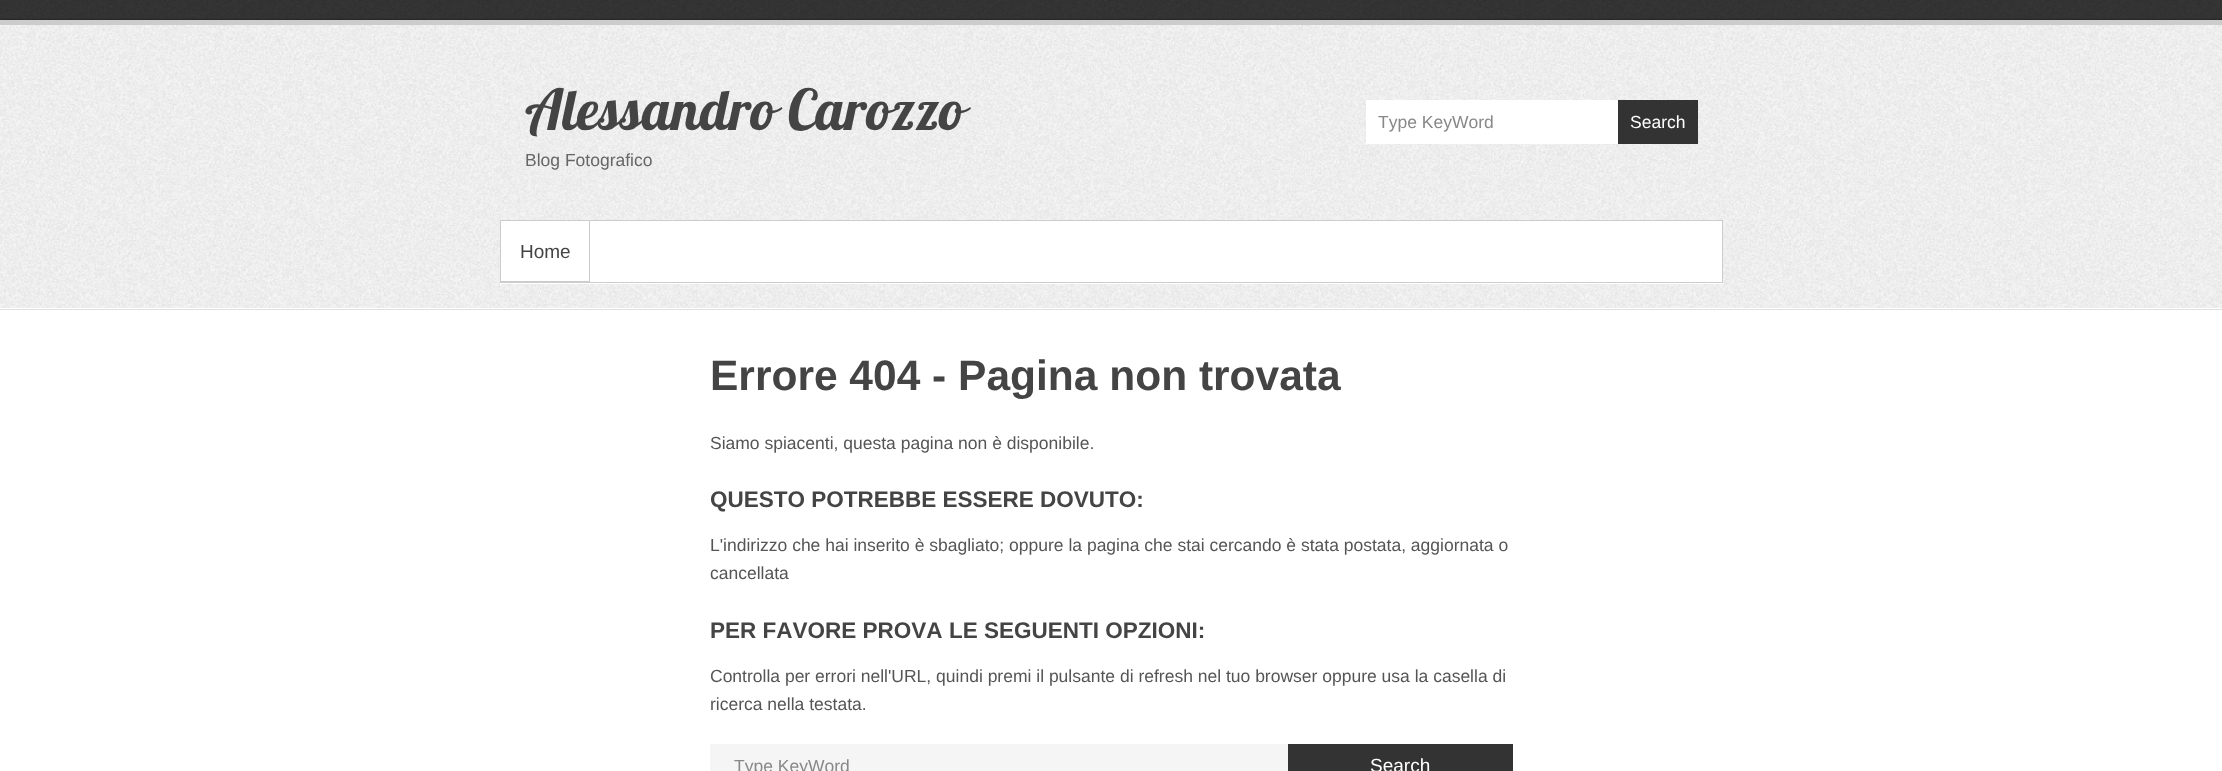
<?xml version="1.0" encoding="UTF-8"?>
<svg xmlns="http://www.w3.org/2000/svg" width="2222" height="771">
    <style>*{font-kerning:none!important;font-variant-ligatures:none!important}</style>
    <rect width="100%" height="100%" fill="#FFFFFF"/>
    <image x="0" y="25" width="2222" height="283" href="img_01.png"/>
    <rect x="0" y="309" width="2222" height="1" fill="#DFDFDF"/>
    <image x="0" y="0" width="2222" height="20" href="img_02.png"/>
    <rect x="0" y="20" width="2222" height="5" fill="#CCCCCC"/>
    <text x="525" y="130" font-family="Lobster" font-size="56.25" fill="#444444">Alessandro Carozzo</text>
    <text x="525" y="166" font-family="Liberation Sans" font-size="17.5" fill="#666666">Blog Fotografico</text>
    <rect x="1366" y="100" width="252" height="44" fill="#FFFFFF"/>
    <text x="1378" y="128" font-family="Liberation Sans" font-size="17.5" fill="#888888">Type KeyWord</text>
    <rect x="1618" y="100" width="80" height="44" fill="#333333"/>
    <text x="1630" y="128" font-family="Liberation Sans" font-size="17.5" fill="#FFFFFF">Search</text>
    <path d="M 500 282 V 284 H 1723 V 221 H 1722 V 282 Z" fill="#FFFFFF"/>
    <rect x="500.5" y="220.5" width="1222" height="62" fill="#FFFFFF" stroke="#CCCCCC"/>
    <rect x="589" y="221" width="1" height="62" fill="#CCCCCC"/>
    <rect x="501" y="281" width="89" height="1" fill="#CCCCCC"/>
    <text x="520" y="258" font-family="Liberation Sans" font-size="19" fill="#444444">Home</text>
    <text x="710" y="390" font-family="Liberation Sans" font-size="42.5" font-weight="700" fill="#444444">Errore 404 - Pagina non trovata</text>
    <text x="710" y="449" font-family="Liberation Sans" font-size="17.5" fill="#555555">Siamo spiacenti, questa pagina non è disponibile.</text>
    <text x="710" y="507" font-family="Liberation Sans" font-size="22.5" font-weight="700" fill="#444444">QUESTO POTREBBE ESSERE DOVUTO:</text>
    <text font-family="Liberation Sans" font-size="17.5" fill="#555555">
        <tspan x="710" y="551">L'indirizzo che hai inserito è sbagliato; oppure la pagina che stai cercando è stata postata, aggiornata o</tspan>
        <tspan x="710" y="579">cancellata</tspan>
    </text>
    <text x="710" y="638" font-family="Liberation Sans" font-size="22.5" font-weight="700" fill="#444444">PER FAVORE PROVA</text>
    <text x="949" y="638" font-family="Liberation Sans" font-size="22.5" font-weight="700" fill="#444444">LE SEGUENTI OPZIONI:</text>
    <text font-family="Liberation Sans" font-size="17.5" fill="#555555">
        <tspan x="710" y="682">Controlla per errori nell'URL, quindi premi il pulsante di refresh nel tuo browser oppure usa la casella di</tspan>
        <tspan x="710" y="710">ricerca nella testata.</tspan>
    </text>
    <rect x="710" y="744" width="578" height="27" fill="#F5F5F5"/>
    <text x="734" y="772" font-family="Liberation Sans" font-size="17.5" fill="#888888">Type KeyWord</text>
    <rect x="1288" y="744" width="225" height="27" fill="#333333"/>
    <text x="1370" y="772" font-family="Liberation Sans" font-size="19" fill="#FFFFFF">Search</text>
</svg>
